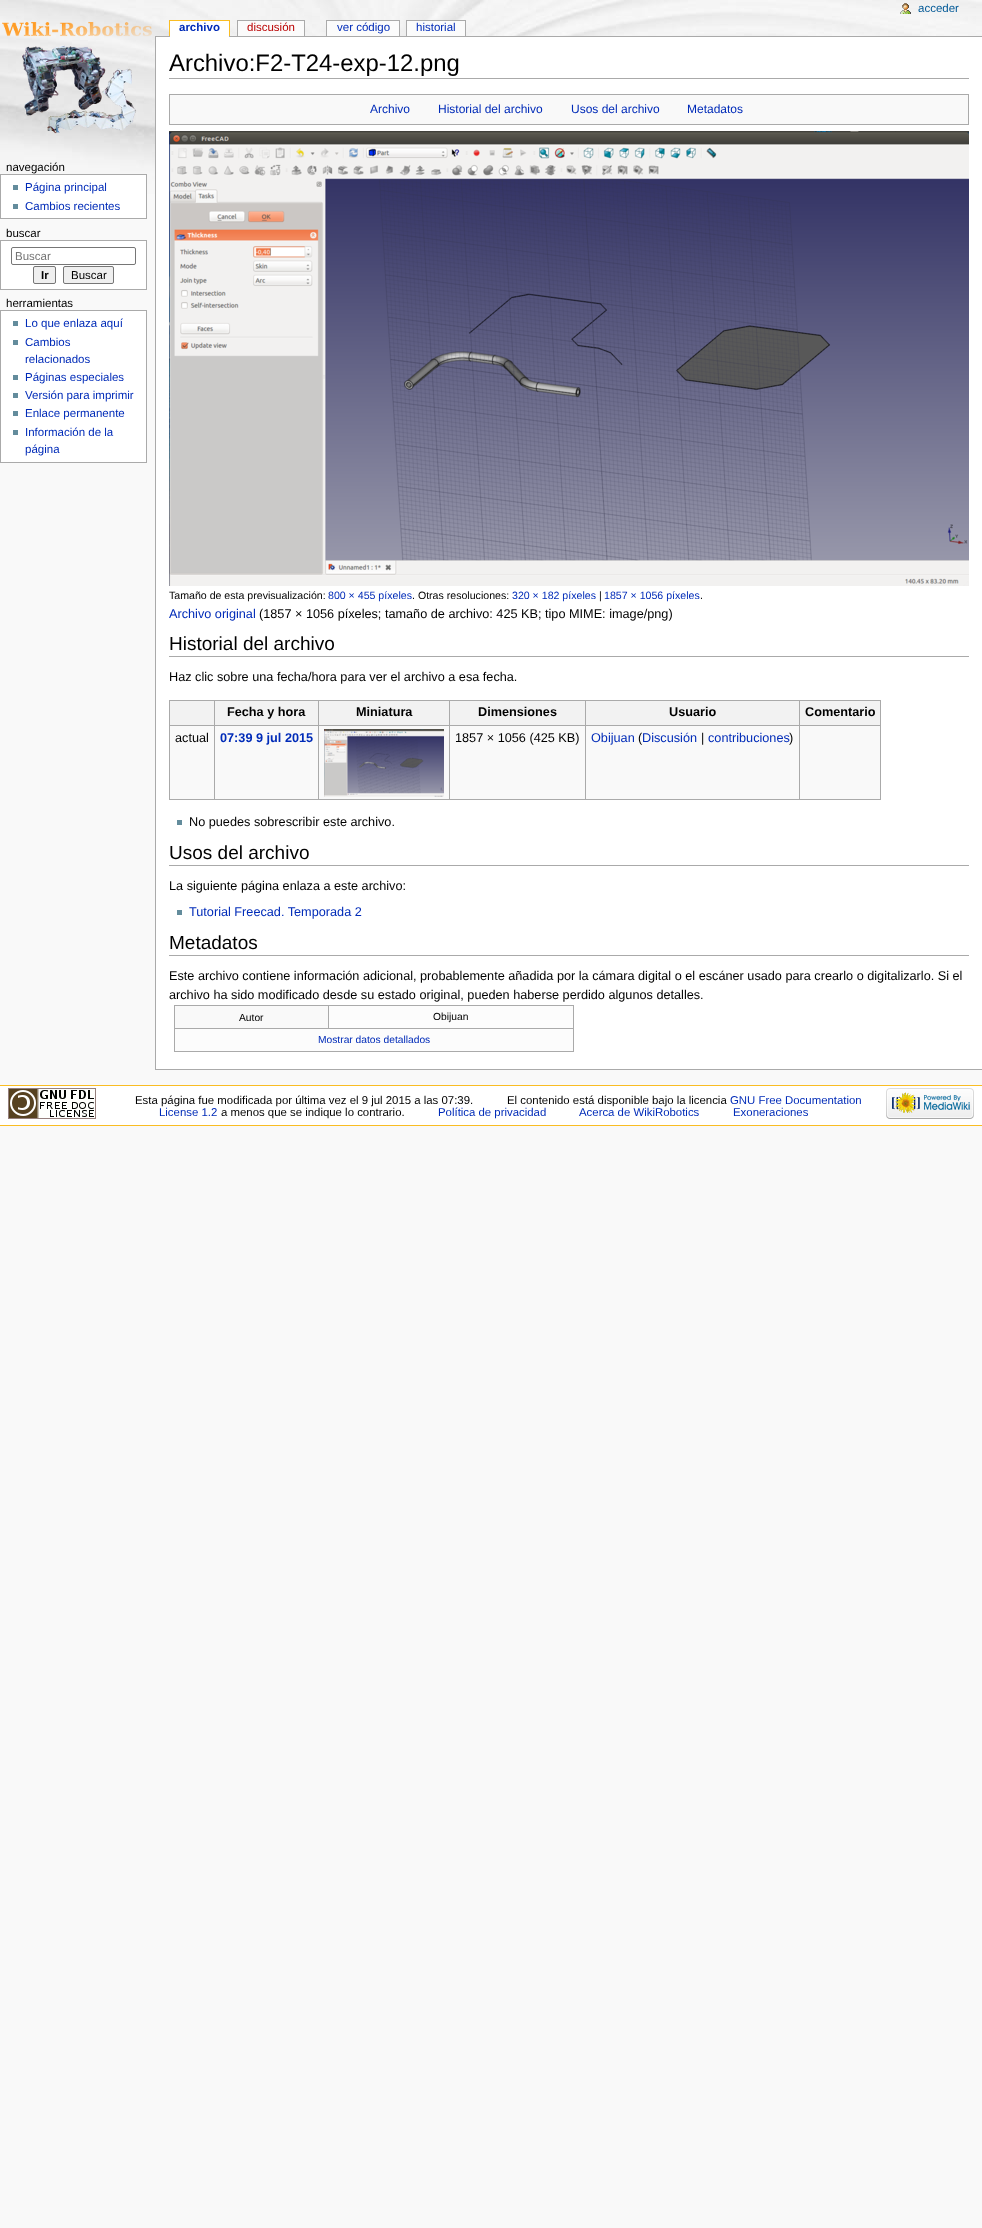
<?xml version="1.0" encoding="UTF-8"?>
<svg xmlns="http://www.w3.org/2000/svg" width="982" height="2228">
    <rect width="100%" height="100%" fill="#F9F9F9"/>
    <image x="0" y="0" width="982" height="194" href="img_01.png"/>
    <image x="900" y="3" width="11" height="11" href="img_02.png"/>
    <text x="918" y="12" font-family="Liberation Sans" font-size="11.5" fill="#005896">acceder</text>
    <image x="2" y="22" width="150" height="112" href="img_03.png"/>
    <rect x="155" y="36" width="827" height="1" fill="#AAAAAA"/>
    <rect x="170" y="21" width="59" height="16" fill="#FFFFFF"/>
    <text x="179" y="31" font-family="Liberation Sans" font-size="11.5" font-weight="700" fill="#002BB8">archivo</text>
    <rect x="169" y="20" width="61" height="1" fill="#FABD23"/>
    <rect x="229" y="20" width="1" height="16" fill="#FABD23"/>
    <rect x="169" y="20" width="1" height="16" fill="#FABD23"/>
    <rect x="238" y="21" width="66" height="15" fill="#FBFBFB"/>
    <text x="247" y="31" font-family="Liberation Sans" font-size="11.5" fill="#BA0000">discusión</text>
    <rect x="237" y="20" width="68" height="1" fill="#AAAAAA"/>
    <rect x="304" y="20" width="1" height="16" fill="#AAAAAA"/>
    <rect x="237" y="20" width="1" height="16" fill="#AAAAAA"/>
    <rect x="327" y="21" width="72" height="15" fill="#FBFBFB"/>
    <text x="337" y="31" font-family="Liberation Sans" font-size="11.5" fill="#002BB8">ver código</text>
    <rect x="326" y="20" width="74" height="1" fill="#AAAAAA"/>
    <rect x="399" y="20" width="1" height="16" fill="#AAAAAA"/>
    <rect x="326" y="20" width="1" height="16" fill="#AAAAAA"/>
    <rect x="407" y="21" width="58" height="15" fill="#FBFBFB"/>
    <text x="416" y="31" font-family="Liberation Sans" font-size="11.5" fill="#002BB8">historial</text>
    <rect x="406" y="20" width="60" height="1" fill="#AAAAAA"/>
    <rect x="465" y="20" width="1" height="16" fill="#AAAAAA"/>
    <rect x="406" y="20" width="1" height="16" fill="#AAAAAA"/>
    <text x="6" y="171" font-family="Liberation Sans" font-size="11.5" fill="#000000">navegación</text>
    <rect x="0.5" y="174.5" width="146" height="44" fill="#FFFFFF" stroke="#AAAAAA"/>
    <rect x="13" y="185" width="5" height="5" fill="#638C9C"/>
    <text x="25" y="191" font-family="Liberation Sans" font-size="11.5" fill="#002BB8">Página principal</text>
    <rect x="13" y="204" width="5" height="5" fill="#638C9C"/>
    <text x="25" y="210" font-family="Liberation Sans" font-size="11.5" fill="#002BB8">Cambios recientes</text>
    <text x="6" y="237" font-family="Liberation Sans" font-size="11.5" fill="#000000">buscar</text>
    <rect x="0.5" y="240.5" width="146" height="49" fill="#FFFFFF" stroke="#AAAAAA"/>
    <rect x="11.5" y="247.5" width="124" height="17" rx="1.5" fill="none" stroke="#767676"/>
    <text x="15" y="260" font-family="Liberation Sans" font-size="11.5" fill="#757575">Buscar</text>
    <rect x="33.5" y="266.5" width="22" height="17" rx="1.5" fill="#EFEFEF" stroke="#767676"/>
    <text x="41" y="279" font-family="Liberation Sans" font-size="11.5" font-weight="700" fill="#000000">Ir</text>
    <rect x="63.5" y="266.5" width="50" height="17" rx="1.5" fill="#EFEFEF" stroke="#767676"/>
    <text x="71" y="279" font-family="Liberation Sans" font-size="11.5" fill="#000000">Buscar</text>
    <text x="6" y="307" font-family="Liberation Sans" font-size="11.5" fill="#000000">herramientas</text>
    <rect x="0.5" y="310.5" width="146" height="152" fill="#FFFFFF" stroke="#AAAAAA"/>
    <rect x="13" y="321" width="5" height="5" fill="#638C9C"/>
    <text x="25" y="327" font-family="Liberation Sans" font-size="11.5" fill="#002BB8">Lo que enlaza aquí</text>
    <rect x="13" y="340" width="5" height="5" fill="#638C9C"/>
    <text font-family="Liberation Sans" font-size="11.5" fill="#002BB8">
        <tspan x="25" y="346">Cambios</tspan>
        <tspan x="25" y="363">relacionados</tspan>
    </text>
    <rect x="13" y="375" width="5" height="5" fill="#638C9C"/>
    <text x="25" y="381" font-family="Liberation Sans" font-size="11.5" fill="#002BB8">Páginas especiales</text>
    <rect x="13" y="393" width="5" height="5" fill="#638C9C"/>
    <text x="25" y="399" font-family="Liberation Sans" font-size="11.5" fill="#002BB8">Versión para imprimir</text>
    <rect x="13" y="411" width="5" height="5" fill="#638C9C"/>
    <text x="25" y="417" font-family="Liberation Sans" font-size="11.5" fill="#002BB8">Enlace permanente</text>
    <rect x="13" y="430" width="5" height="5" fill="#638C9C"/>
    <text font-family="Liberation Sans" font-size="11.5" fill="#002BB8">
        <tspan x="25" y="436">Información de la</tspan>
        <tspan x="25" y="453">página</tspan>
    </text>
    <rect x="156" y="37" width="826" height="1032" fill="#FFFFFF"/>
    <rect x="155" y="1069" width="827" height="1" fill="#AAAAAA"/>
    <rect x="155" y="36" width="1" height="1034" fill="#AAAAAA"/>
    <rect x="169" y="78" width="800" height="1" fill="#AAAAAA"/>
    <text x="169" y="71" font-family="Liberation Sans" font-size="23.9" fill="#000000">Archivo:F2-T24-exp-12.png</text>
    <rect x="169.5" y="94.5" width="799" height="30" fill="#F9F9F9" stroke="#AAAAAA"/>
    <text x="370" y="113" font-family="Liberation Sans" font-size="12" fill="#002BB8">Archivo</text>
    <text x="438" y="113" font-family="Liberation Sans" font-size="12" fill="#002BB8">Historial del archivo</text>
    <text x="571" y="113" font-family="Liberation Sans" font-size="12" fill="#002BB8">Usos del archivo</text>
    <text x="687" y="113" font-family="Liberation Sans" font-size="12" fill="#002BB8">Metadatos</text>
    <image x="169" y="131" width="800" height="455" href="img_04.png"/>
    <text x="169" y="599" font-family="Liberation Sans" font-size="10.6" fill="#000000">Tamaño de esta previsualización:</text>
    <text x="328" y="599" font-family="Liberation Sans" font-size="10.6" fill="#002BB8">800 × 455 píxeles</text>
    <text x="412" y="599" font-family="Liberation Sans" font-size="10.6" fill="#000000">. Otras resoluciones:</text>
    <text x="512" y="599" font-family="Liberation Sans" font-size="10.6" fill="#002BB8">320 × 182 píxeles</text>
    <text x="599" y="599" font-family="Liberation Sans" font-size="10.6" fill="#000000">|</text>
    <text x="604" y="599" font-family="Liberation Sans" font-size="10.6" fill="#002BB8">1857 × 1056 píxeles</text>
    <text x="700" y="599" font-family="Liberation Sans" font-size="10.6" fill="#000000">.</text>
    <text x="169" y="618" font-family="Liberation Sans" font-size="12.7" fill="#002BB8">Archivo original</text>
    <text x="259" y="618" font-family="Liberation Sans" font-size="12.7" fill="#000000">(1857 × 1056 píxeles; tamaño de archivo: 425 KB; tipo MIME: image/png)</text>
    <rect x="169" y="656" width="800" height="1" fill="#AAAAAA"/>
    <text x="169" y="650" font-family="Liberation Sans" font-size="19" fill="#000000">Historial del archivo</text>
    <text x="169" y="681" font-family="Liberation Sans" font-size="12.7" fill="#000000">Haz clic sobre una fecha/hora para ver el archivo a esa fecha.</text>
    <rect x="170" y="726" width="710" height="73" fill="#F9F9F9"/>
    <rect x="169" y="700" width="712" height="1" fill="#AAAAAA"/>
    <rect x="880" y="700" width="1" height="100" fill="#AAAAAA"/>
    <rect x="169" y="799" width="712" height="1" fill="#AAAAAA"/>
    <rect x="169" y="700" width="1" height="100" fill="#AAAAAA"/>
    <rect x="170" y="701" width="44" height="24" fill="#F2F2F2"/>
    <rect x="215" y="701" width="103" height="24" fill="#F2F2F2"/>
    <rect x="799" y="725" width="82" height="1" fill="#AAAAAA"/>
    <rect x="799" y="725" width="1" height="75" fill="#AAAAAA"/>
    <rect x="585" y="725" width="215" height="1" fill="#AAAAAA"/>
    <rect x="585" y="725" width="1" height="75" fill="#AAAAAA"/>
    <rect x="449" y="725" width="137" height="1" fill="#AAAAAA"/>
    <rect x="449" y="725" width="1" height="75" fill="#AAAAAA"/>
    <rect x="318" y="725" width="132" height="1" fill="#AAAAAA"/>
    <rect x="318" y="725" width="1" height="75" fill="#AAAAAA"/>
    <rect x="214" y="725" width="105" height="1" fill="#AAAAAA"/>
    <rect x="214" y="725" width="1" height="75" fill="#AAAAAA"/>
    <rect x="169" y="725" width="46" height="1" fill="#AAAAAA"/>
    <rect x="214" y="700" width="1" height="26" fill="#AAAAAA"/>
    <text x="227" y="716" font-family="Liberation Sans" font-size="12.7" font-weight="700" fill="#000000">Fecha y hora</text>
    <rect x="319" y="701" width="130" height="24" fill="#F2F2F2"/>
    <rect x="318" y="700" width="1" height="26" fill="#AAAAAA"/>
    <text x="356" y="716" font-family="Liberation Sans" font-size="12.7" font-weight="700" fill="#000000">Miniatura</text>
    <rect x="450" y="701" width="135" height="24" fill="#F2F2F2"/>
    <rect x="449" y="700" width="1" height="26" fill="#AAAAAA"/>
    <text x="478" y="716" font-family="Liberation Sans" font-size="12.7" font-weight="700" fill="#000000">Dimensiones</text>
    <rect x="586" y="701" width="213" height="24" fill="#F2F2F2"/>
    <rect x="585" y="700" width="1" height="26" fill="#AAAAAA"/>
    <text x="669" y="716" font-family="Liberation Sans" font-size="12.7" font-weight="700" fill="#000000">Usuario</text>
    <rect x="800" y="701" width="80" height="24" fill="#F2F2F2"/>
    <rect x="799" y="700" width="1" height="26" fill="#AAAAAA"/>
    <text x="805" y="716" font-family="Liberation Sans" font-size="12.7" font-weight="700" fill="#000000">Comentario</text>
    <text x="175" y="742" font-family="Liberation Sans" font-size="12.7" fill="#000000">actual</text>
    <text x="220" y="742" font-family="Liberation Sans" font-size="12.7" font-weight="700" fill="#002BB8">07:39 9 jul 2015</text>
    <image x="324" y="729" width="120" height="68" href="img_05.png"/>
    <text x="455" y="742" font-family="Liberation Sans" font-size="12.7" fill="#000000">1857 × 1056 (425 KB)</text>
    <text x="591" y="742" font-family="Liberation Sans" font-size="12.7" fill="#002BB8">Obijuan</text>
    <text x="638" y="742" font-family="Liberation Sans" font-size="12.7" fill="#000000">(</text>
    <text x="642" y="742" font-family="Liberation Sans" font-size="12.7" fill="#002BB8">Discusión</text>
    <text x="701" y="742" font-family="Liberation Sans" font-size="12.7" fill="#000000">|</text>
    <text x="708" y="742" font-family="Liberation Sans" font-size="12.7" fill="#002BB8">contribuciones</text>
    <text x="789" y="742" font-family="Liberation Sans" font-size="12.7" fill="#000000">)</text>
    <rect x="177" y="820" width="5" height="5" fill="#638C9C"/>
    <text x="189" y="826" font-family="Liberation Sans" font-size="12.7" fill="#000000">No puedes sobrescribir este archivo.</text>
    <rect x="169" y="865" width="800" height="1" fill="#AAAAAA"/>
    <text x="169" y="859" font-family="Liberation Sans" font-size="19" fill="#000000">Usos del archivo</text>
    <text x="169" y="890" font-family="Liberation Sans" font-size="12.7" fill="#000000">La siguiente página enlaza a este archivo:</text>
    <rect x="177" y="910" width="5" height="5" fill="#638C9C"/>
    <text x="189" y="916" font-family="Liberation Sans" font-size="12.7" fill="#002BB8">Tutorial Freecad. Temporada 2</text>
    <rect x="169" y="955" width="800" height="1" fill="#AAAAAA"/>
    <text x="169" y="949" font-family="Liberation Sans" font-size="19" fill="#000000">Metadatos</text>
    <text font-family="Liberation Sans" font-size="12.7" fill="#000000">
        <tspan x="169" y="980">Este archivo contiene información adicional, probablemente añadida por la cámara digital o el escáner usado para crearlo o digitalizarlo. Si el</tspan>
        <tspan x="169" y="999">archivo ha sido modificado desde su estado original, pueden haberse perdido algunos detalles.</tspan>
    </text>
    <rect x="175" y="1006" width="153" height="22" fill="#F9F9F9"/>
    <rect x="328" y="1005" width="246" height="1" fill="#AAAAAA"/>
    <rect x="174" y="1028" width="400" height="1" fill="#AAAAAA"/>
    <rect x="328" y="1005" width="1" height="24" fill="#AAAAAA"/>
    <rect x="174" y="1005" width="155" height="1" fill="#AAAAAA"/>
    <rect x="573" y="1028" width="1" height="24" fill="#AAAAAA"/>
    <rect x="174" y="1051" width="400" height="1" fill="#AAAAAA"/>
    <rect x="174" y="1028" width="1" height="24" fill="#AAAAAA"/>
    <rect x="174" y="1005" width="1" height="24" fill="#AAAAAA"/>
    <text x="239" y="1021" font-family="Liberation Sans" font-size="10.25" fill="#000000">Autor</text>
    <rect x="329" y="1006" width="244" height="22" fill="#FCFCFC"/>
    <rect x="573" y="1005" width="1" height="24" fill="#AAAAAA"/>
    <text x="433" y="1020" font-family="Liberation Sans" font-size="10.25" fill="#000000">Obijuan</text>
    <rect x="175" y="1029" width="398" height="22" fill="#FCFCFC"/>
    <text x="318" y="1043" font-family="Liberation Sans" font-size="10.25" fill="#002BB8">Mostrar datos detallados</text>
    <rect x="0" y="1086" width="982" height="39" fill="#FFFFFF"/>
    <rect x="0" y="1085" width="982" height="1" fill="#FABD23"/>
    <rect x="0" y="1125" width="982" height="1" fill="#FABD23"/>
    <image x="8" y="1088" width="88" height="31" href="img_06.png"/>
    <text x="135" y="1104" font-family="Liberation Sans" font-size="11.4" fill="#000000">Esta página fue modificada por última vez el 9 jul 2015 a las 07:39.</text>
    <text x="507" y="1104" font-family="Liberation Sans" font-size="11.4" fill="#000000">El contenido está disponible bajo la licencia</text>
    <text x="730" y="1104" font-family="Liberation Sans" font-size="11.4" fill="#002BB8">GNU Free Documentation</text>
    <text x="159" y="1116" font-family="Liberation Sans" font-size="11.4" fill="#002BB8">License 1.2</text>
    <text x="221" y="1116" font-family="Liberation Sans" font-size="11.4" fill="#000000">a menos que se indique lo contrario.</text>
    <text x="438" y="1116" font-family="Liberation Sans" font-size="11.4" fill="#002BB8">Política de privacidad</text>
    <text x="579" y="1116" font-family="Liberation Sans" font-size="11.4" fill="#002BB8">Acerca de WikiRobotics</text>
    <text x="733" y="1116" font-family="Liberation Sans" font-size="11.4" fill="#002BB8">Exoneraciones</text>
    <image x="886" y="1088" width="88" height="31" href="img_07.png"/>
</svg>
